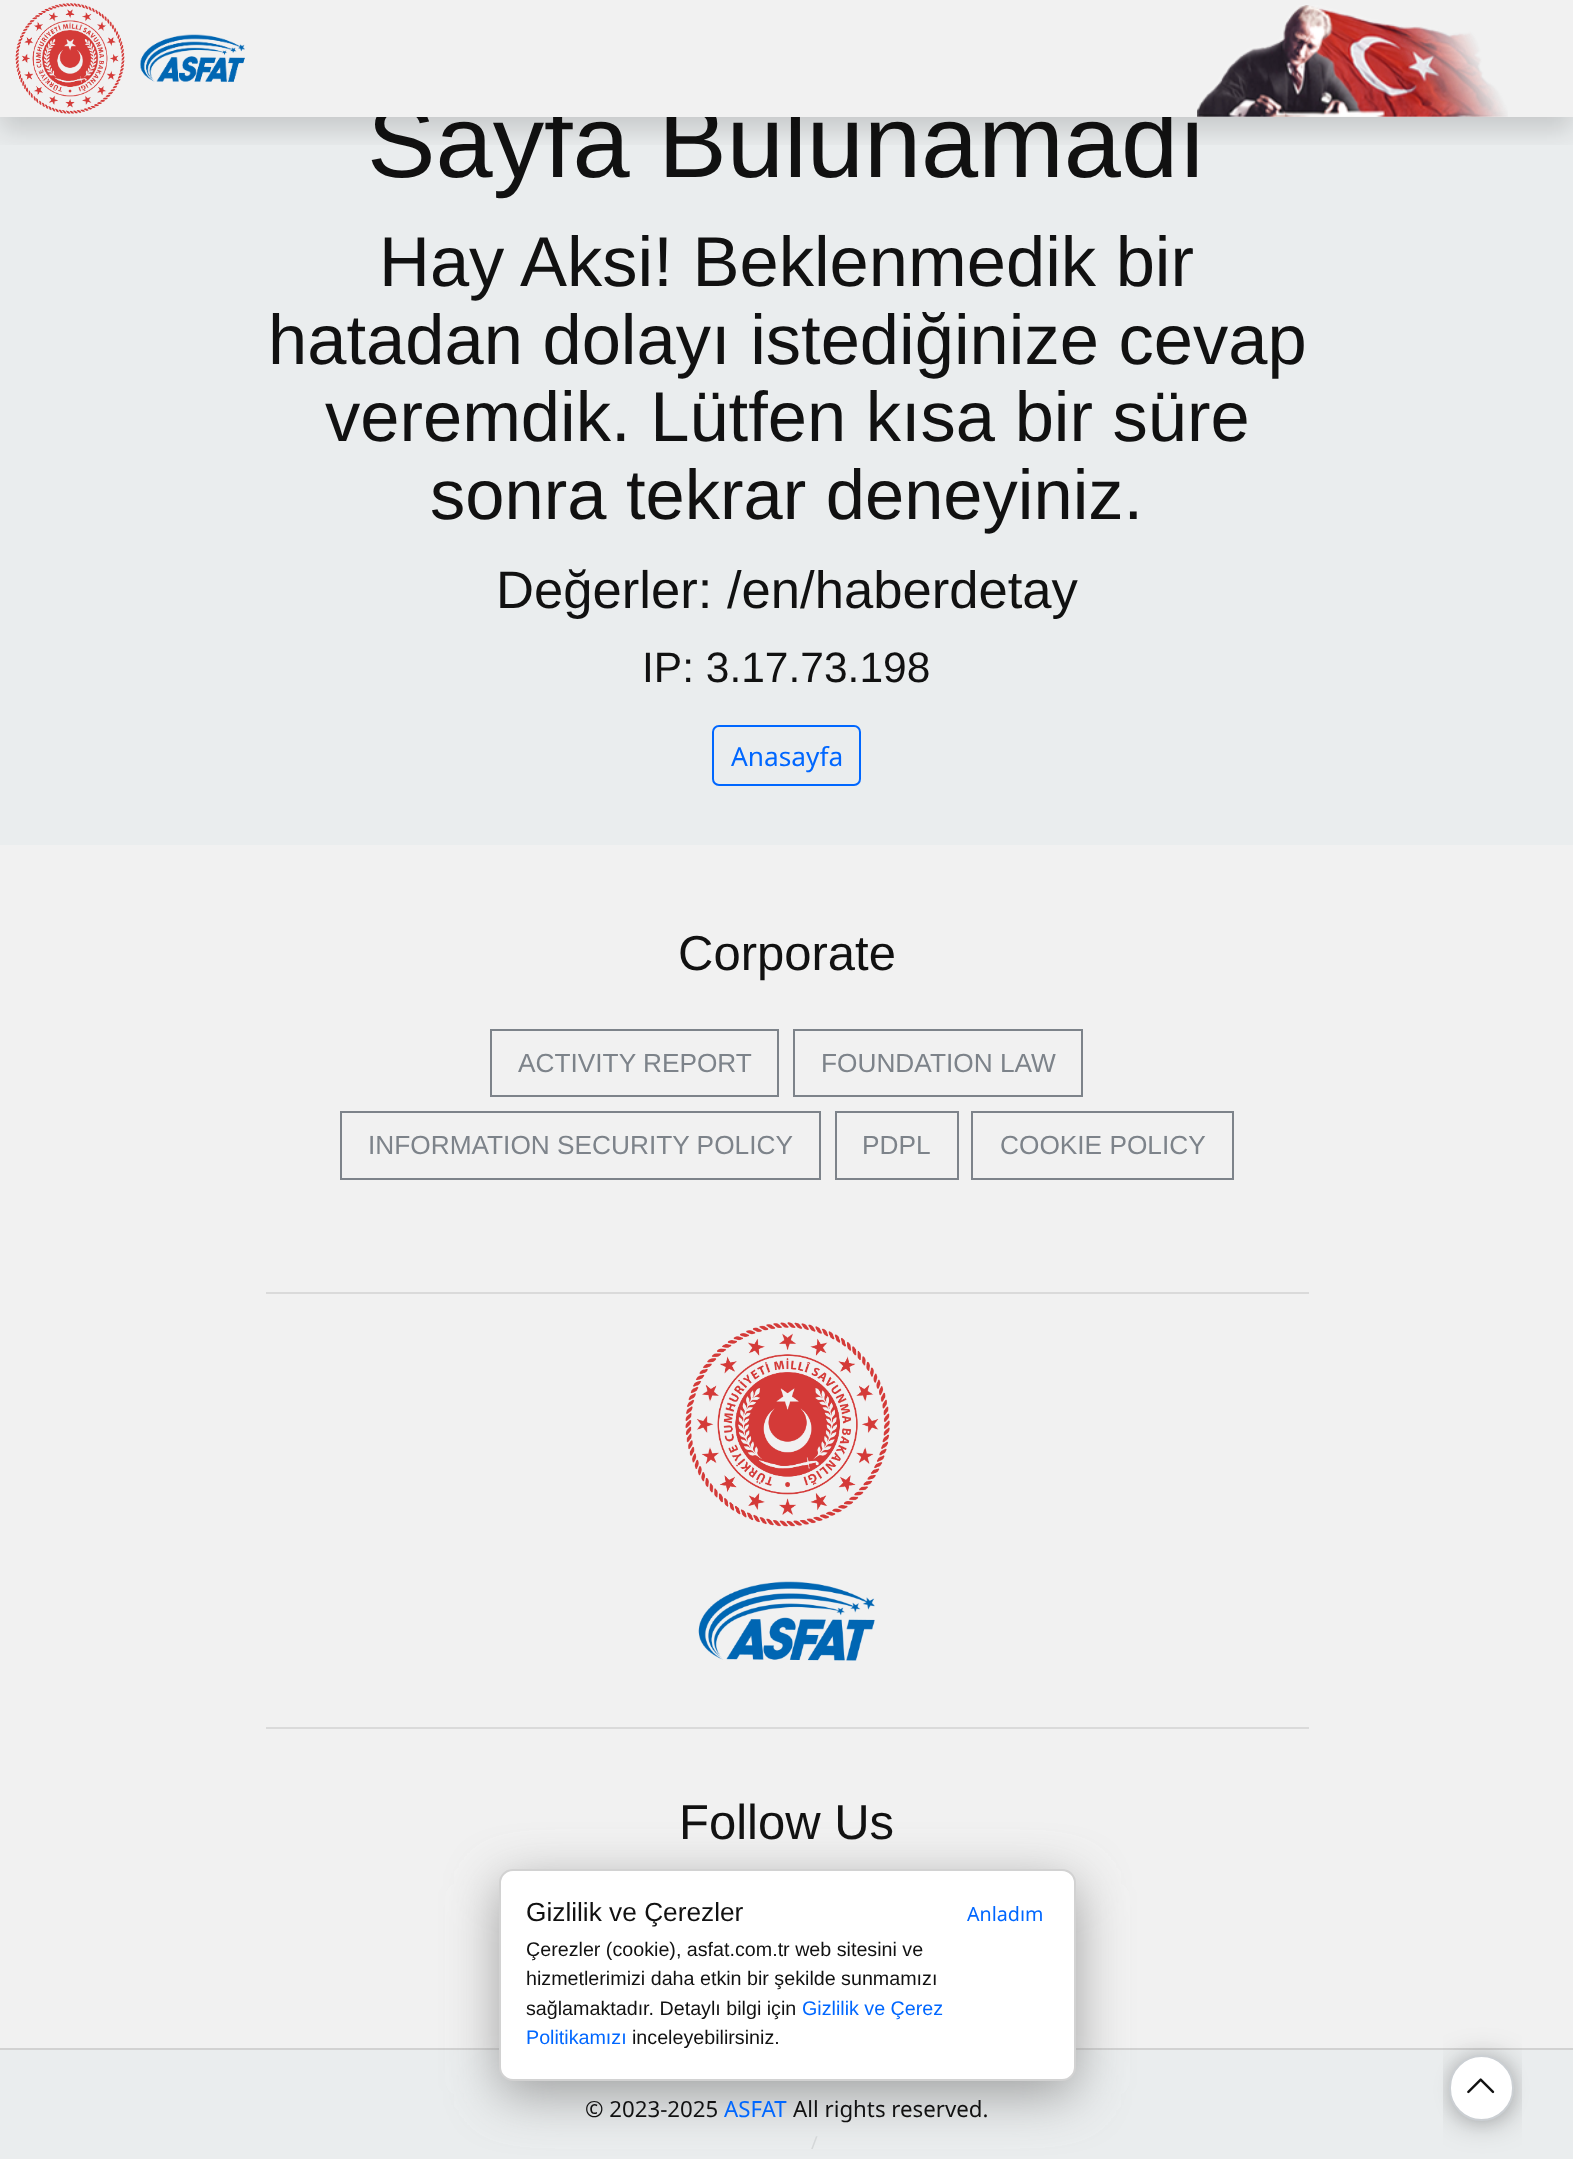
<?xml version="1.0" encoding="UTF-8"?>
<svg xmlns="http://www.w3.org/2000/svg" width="1573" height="2159">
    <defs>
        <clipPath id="clip1"><rect x="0" y="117" width="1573" height="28"/></clipPath>
        <filter id="blur1" x="-50%" y="-200%" width="200%" height="500%"><feGaussianBlur stdDeviation="13"/></filter>
        <filter id="blur2" x="-50%" y="-200%" width="200%" height="500%"><feGaussianBlur stdDeviation="26"/></filter>
        <filter id="blur3" x="-50%" y="-200%" width="200%" height="500%"><feGaussianBlur stdDeviation="10"/></filter>
        <filter id="blur4" x="-50%" y="-200%" width="200%" height="500%"><feGaussianBlur stdDeviation="19.5"/></filter>
    </defs>
    <rect width="100%" height="100%" fill="#EAEDEE"/>
    <text x="367" y="177" font-family="Liberation Sans" font-size="102.75" fill="#111111">Sayfa Bulunamadı</text>
    <rect x="0" y="0" width="1573" height="117" fill="#F1F1F1"/>
    <g clip-path="url(#clip1)">
        <rect x="0" y="14" width="1573" height="117" fill="#000000" fill-opacity="0.15" filter="url(#blur1)"/>
    </g>
    <image x="15" y="3" width="110" height="111" href="img_01.png"/>
    <image x="140" y="34" width="105" height="48" href="img_02.png"/>
    <image x="1197" y="5" width="311" height="112" href="img_03.png"/>
    <text x="379" y="286" font-family="Liberation Sans" font-size="70.5" fill="#111111">Hay Aksi! Beklenmedik bir</text>
    <text x="268" y="364" font-family="Liberation Sans" font-size="70.5" fill="#111111">hatadan dolayı istediğinize cevap</text>
    <text x="325" y="441" font-family="Liberation Sans" font-size="70.5" fill="#111111">veremdik. Lütfen kısa bir süre</text>
    <text x="430" y="519" font-family="Liberation Sans" font-size="70.5" fill="#111111">sonra tekrar deneyiniz.</text>
    <text x="496" y="608" font-family="Liberation Sans" font-size="52.6" fill="#111111">Değerler: /en/haberdetay</text>
    <text x="642" y="682" font-family="Liberation Sans" font-size="42.5" fill="#111111">IP: 3.17.73.198</text>
    <rect x="713" y="726" width="147" height="59" rx="6" fill="none" stroke="#0067FF" stroke-width="2"/>
    <text x="731" y="766" font-family="Noto Sans" font-size="26.25" fill="#0067FF">Anasayfa</text>
    <rect x="0" y="845" width="1573" height="1203" fill="#F1F1F1"/>
    <text x="678" y="970" font-family="Liberation Sans" font-size="49" fill="#111111">Corporate</text>
    <rect x="491" y="1030" width="287" height="66" fill="none" stroke="#7D838A" stroke-width="2"/>
    <text x="518" y="1072" font-family="Liberation Sans" font-size="26.25" fill="#7D838A">ACTIVITY REPORT</text>
    <rect x="794" y="1030" width="288" height="66" fill="none" stroke="#7D838A" stroke-width="2"/>
    <text x="821" y="1072" font-family="Liberation Sans" font-size="26.25" fill="#7D838A">FOUNDATION LAW</text>
    <rect x="341" y="1112" width="479" height="67" fill="none" stroke="#7D838A" stroke-width="2"/>
    <text x="368" y="1154" font-family="Liberation Sans" font-size="26.25" fill="#7D838A">INFORMATION SECURITY POLICY</text>
    <rect x="836" y="1112" width="122" height="67" fill="none" stroke="#7D838A" stroke-width="2"/>
    <text x="862" y="1154" font-family="Liberation Sans" font-size="26.25" fill="#7D838A">PDPL</text>
    <rect x="972" y="1112" width="261" height="67" fill="none" stroke="#7D838A" stroke-width="2"/>
    <text x="1000" y="1154" font-family="Liberation Sans" font-size="26.25" fill="#7D838A">COOKIE POLICY</text>
    <rect x="266" y="1292" width="1043" height="2" fill="#DADADA"/>
    <rect x="266" y="1727" width="1043" height="2" fill="#DADADA"/>
    <image x="685" y="1322" width="205" height="205" href="img_04.png"/>
    <image x="698" y="1581" width="177" height="80" href="img_05.png"/>
    <text x="679" y="1839" font-family="Liberation Sans" font-size="49" fill="#111111">Follow Us</text>
    <rect x="0" y="2048" width="1573" height="2" fill="#D2D2D2"/>
    <rect x="499" y="1883" width="577" height="212" rx="14" fill="#868686" fill-opacity="0.75" filter="url(#blur2)"/>
    <rect x="500" y="1870" width="575" height="210" rx="13" fill="#FFFFFF" stroke="#D2D2D2" stroke-width="2"/>
    <text x="526" y="1921" font-family="Liberation Sans" font-size="26.25" fill="#111111">Gizlilik ve Çerezler</text>
    <text x="967" y="1921" font-family="Noto Sans" font-size="19.7" fill="#0067FF">Anladım</text>
    <text font-family="Liberation Sans" font-size="19.7" fill="#111111">
        <tspan x="526" y="1956">Çerezler (cookie), asfat.com.tr web sitesini ve</tspan>
        <tspan x="526" y="1985">hizmetlerimizi daha etkin bir şekilde sunmamızı</tspan>
        <tspan x="526" y="2015">sağlamaktadır. Detaylı bilgi için</tspan>
    </text>
    <text x="802" y="2015" font-family="Liberation Sans" font-size="19.7" fill="#0067FF">Gizlilik ve Çerez</text>
    <text x="526" y="2044" font-family="Liberation Sans" font-size="19.7" fill="#0067FF">Politikamızı</text>
    <text x="632" y="2044" font-family="Liberation Sans" font-size="19.7" fill="#111111">inceleyebilirsiniz.</text>
    <text x="585" y="2117" font-family="Noto Sans" font-size="22.25" fill="#111111">© 2023-2025</text>
    <text x="724" y="2117" font-family="Noto Sans" font-size="22.25" fill="#0067FF">ASFAT</text>
    <text x="793" y="2117" font-family="Noto Sans" font-size="22.25" fill="#111111">All rights reserved.</text>
    <text x="811" y="2149" font-family="Noto Sans" font-size="18" fill="#D4D7D8">/</text>
    <rect x="1453" y="2060" width="57" height="59" rx="28.5" fill="#000000" fill-opacity="0.15" filter="url(#blur3)"/>
    <rect x="1463" y="2070" width="39" height="41" rx="19.5" fill="#000000" fill-opacity="0.75" filter="url(#blur4)"/>
    <rect x="1450" y="2056" width="63" height="64" rx="31.5" fill="#FFFFFF" stroke="#CBCFD3" stroke-width="2"/>
    <image x="1467" y="2078" width="28" height="16" href="img_06.png"/>
</svg>
